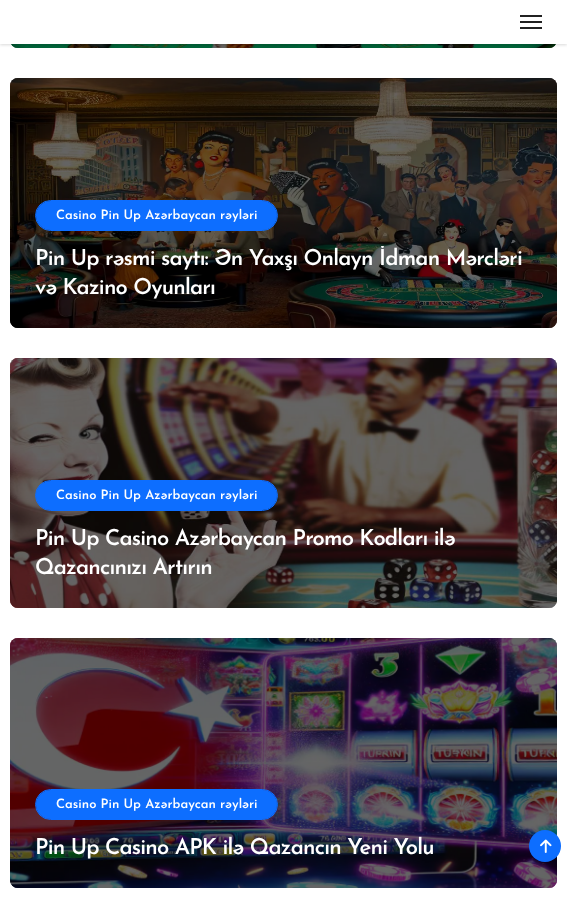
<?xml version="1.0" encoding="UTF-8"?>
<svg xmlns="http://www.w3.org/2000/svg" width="567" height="907">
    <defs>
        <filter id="blur1" x="-50%" y="-200%" width="200%" height="500%"><feGaussianBlur stdDeviation="1.5"/></filter>
        <clipPath id="clip1"><rect x="35" y="246" width="497" height="57"/></clipPath>
    </defs>
    <rect width="100%" height="100%" fill="#FFFFFF"/>
    <rect x="10" y="-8" width="547" height="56" rx="8" fill="#333333"/>
    <image x="11" y="44" width="545" height="4" href="img_01.png"/>
    <rect x="10" y="-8" width="547" height="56" rx="8" fill="#000000" fill-opacity="0.6"/>
    <rect x="0" y="1" width="567" height="44" fill="#000000" fill-opacity="0.15" filter="url(#blur1)"/>
    <rect x="0" y="0" width="567" height="44" fill="#FFFFFF"/>
    <rect x="520" y="15" width="22" height="2" fill="#212121"/>
    <rect x="520" y="21" width="22" height="2" fill="#212121"/>
    <rect x="520" y="27" width="22" height="2" fill="#212121"/>
    <rect x="10" y="78" width="547" height="250" rx="8" fill="#333333"/>
    <image x="10" y="78" width="547" height="250" href="img_02.png"/>
    <rect x="10" y="78" width="547" height="250" rx="8" fill="#000000" fill-opacity="0.6"/>
    <rect x="35.5" y="200.5" width="242" height="30" rx="15" fill="none" stroke="#0D6EFF"/>
    <rect x="36" y="201" width="241" height="29" rx="14.5" fill="#0D6EFF"/>
    <text x="56" y="219" font-family="Josefin Sans" font-size="13" font-weight="600" fill="#FFFFFF">Casino Pin Up Azərbaycan rəyləri</text>
    <g clip-path="url(#clip1)">
        <text x="35" y="265" font-family="Josefin Sans" font-size="22" font-weight="600" letter-spacing="-0.8" fill="#FFFFFF">Pin Up rəsmi saytı: Ən Yaxşı Onlayn İdman Mərcləri</text>
    </g>
    <text x="35" y="294" font-family="Josefin Sans" font-size="22" font-weight="600" letter-spacing="-0.8" fill="#FFFFFF">və Kazino Oyunları</text>
    <rect x="10" y="358" width="547" height="250" rx="8" fill="#333333"/>
    <image x="10" y="358" width="547" height="250" href="img_03.png"/>
    <rect x="10" y="358" width="547" height="250" rx="8" fill="#000000" fill-opacity="0.6"/>
    <rect x="35.5" y="480.5" width="242" height="30" rx="15" fill="none" stroke="#0D6EFF"/>
    <rect x="36" y="481" width="241" height="29" rx="14.5" fill="#0D6EFF"/>
    <text x="56" y="499" font-family="Josefin Sans" font-size="13" font-weight="600" fill="#FFFFFF">Casino Pin Up Azərbaycan rəyləri</text>
    <text font-family="Josefin Sans" font-size="22" font-weight="600" letter-spacing="-0.8" fill="#FFFFFF">
        <tspan x="35" y="545">Pin Up Casino Azərbaycan Promo Kodları ilə</tspan>
        <tspan x="35" y="574">Qazancınızı Artırın</tspan>
    </text>
    <rect x="10" y="638" width="547" height="250" rx="8" fill="#333333"/>
    <image x="10" y="638" width="547" height="250" href="img_04.png"/>
    <rect x="10" y="638" width="547" height="250" rx="8" fill="#000000" fill-opacity="0.6"/>
    <rect x="35.5" y="789.5" width="242" height="30" rx="15" fill="none" stroke="#0D6EFF"/>
    <rect x="36" y="790" width="241" height="29" rx="14.5" fill="#0D6EFF"/>
    <text x="56" y="808" font-family="Josefin Sans" font-size="13" font-weight="600" fill="#FFFFFF">Casino Pin Up Azərbaycan rəyləri</text>
    <text x="35" y="854" font-family="Josefin Sans" font-size="22" font-weight="600" letter-spacing="-0.8" fill="#FFFFFF">Pin Up Casino APK ilə Qazancın Yeni Yolu</text>
    <circle cx="545" cy="846" r="16" fill="#0D6EFF"/>
    <image x="540" y="839" width="12" height="14" href="img_05.png"/>
</svg>
